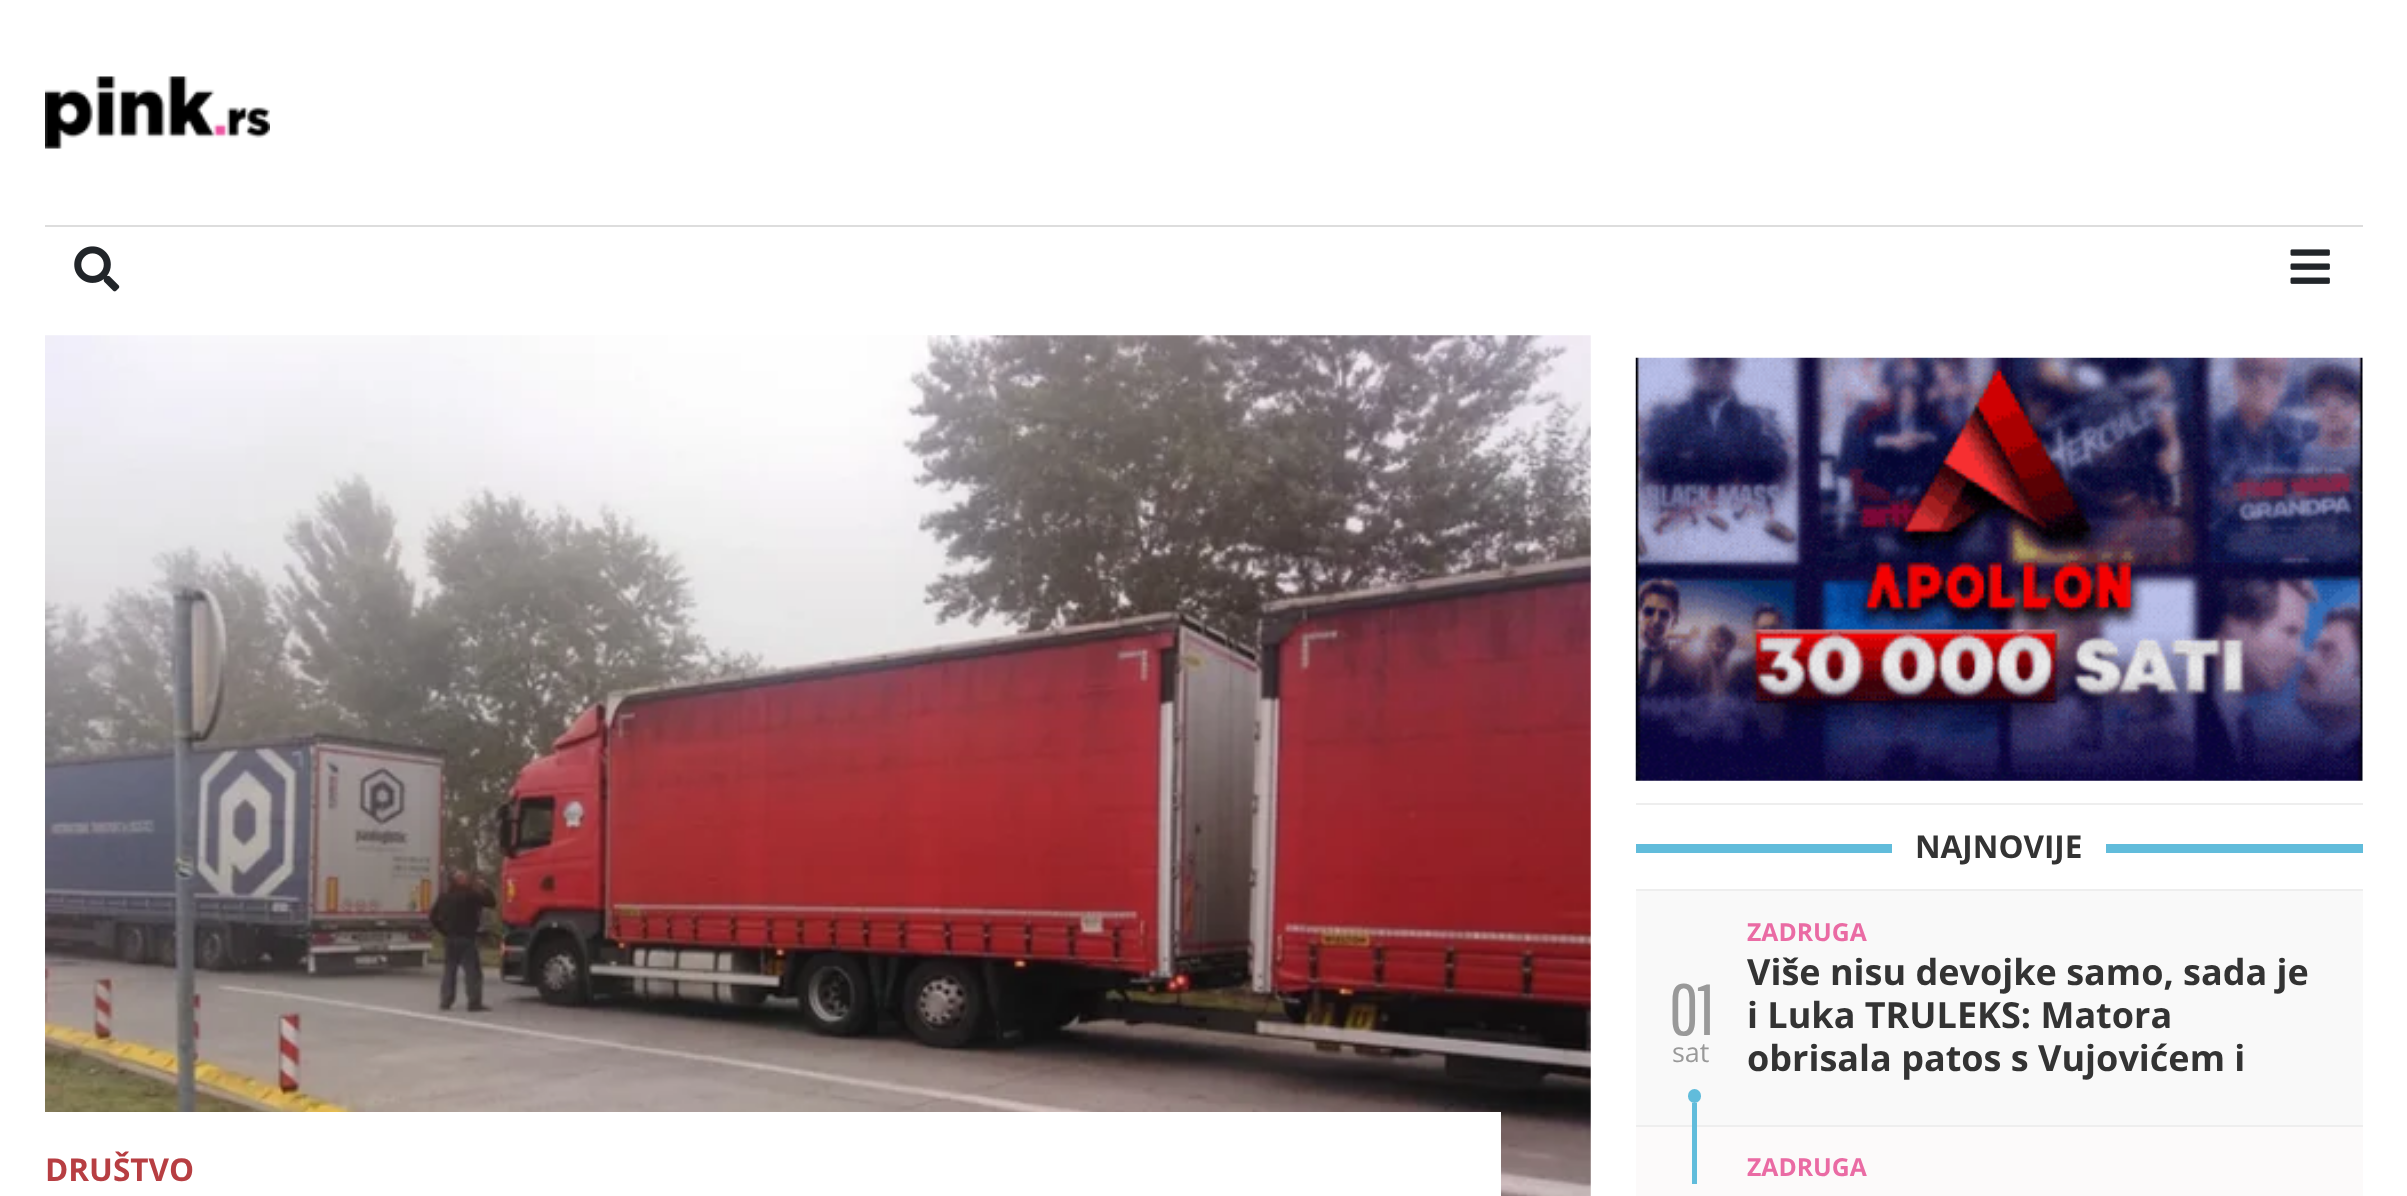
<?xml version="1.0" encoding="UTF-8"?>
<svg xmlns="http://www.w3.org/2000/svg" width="2407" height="1196">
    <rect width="100%" height="100%" fill="#FFFFFF"/>
    <image x="45" y="76" width="225" height="73" href="img_01.png"/>
    <rect x="45" y="225" width="2318" height="2" fill="#DDDDDD"/>
    <image x="74" y="246" width="46" height="46" href="img_02.png"/>
    <image x="2290" y="249" width="40" height="35" href="img_03.png"/>
    <image x="45" y="335" width="1546" height="861" href="img_04.png"/>
    <rect x="45" y="1112" width="1456" height="84" fill="#FFFFFF"/>
    <text x="45" y="1181" font-family="Open Sans" font-size="31.5" font-weight="700" fill="#B73E42">DRUŠTVO</text>
    <image x="1635" y="357" width="728" height="424" href="img_05.png"/>
    <rect x="1636" y="803" width="727" height="2" fill="#EEEEEE"/>
    <rect x="1636" y="889" width="727" height="2" fill="#EEEEEE"/>
    <rect x="1636" y="844" width="256" height="9" fill="#61BCDB"/>
    <text x="1915" y="858" font-family="Open Sans" font-size="31.5" font-weight="700" fill="#333333">NAJNOVIJE</text>
    <rect x="2106" y="844" width="257" height="9" fill="#61BCDB"/>
    <rect x="1636" y="891" width="727" height="234" fill="#F9F9F9"/>
    <rect x="1636" y="1125" width="727" height="2" fill="#EEEEEE"/>
    <text x="1669" y="1035" font-family="Pathway Gothic One" font-size="72" letter-spacing="-1" fill="#999999">01</text>
    <text x="1672" y="1062" font-family="Open Sans" font-size="27" fill="#999999">sat</text>
    <text x="1747" y="941" font-family="Open Sans" font-size="24.75" font-weight="700" fill="#EA6BA4">ZADRUGA</text>
    <text font-family="Open Sans" font-size="36" font-weight="700" fill="#333333">
        <tspan x="1747" y="985">Više nisu devojke samo, sada je</tspan>
        <tspan x="1747" y="1028">i Luka TRULEKS: Matora</tspan>
        <tspan x="1747" y="1071">obrisala patos s Vujovićem i</tspan>
    </text>
    <rect x="1688" y="1089" width="13" height="14" rx="6.5" fill="#61BCDB"/>
    <rect x="1692" y="1103" width="5" height="27" fill="#61BCDB"/>
    <rect x="1636" y="1127" width="727" height="69" fill="#FCFAFA"/>
    <rect x="1692" y="1125" width="5" height="59" fill="#61BCDB"/>
    <text x="1747" y="1176" font-family="Open Sans" font-size="24.75" font-weight="700" fill="#EA6BA4">ZADRUGA</text>
</svg>
